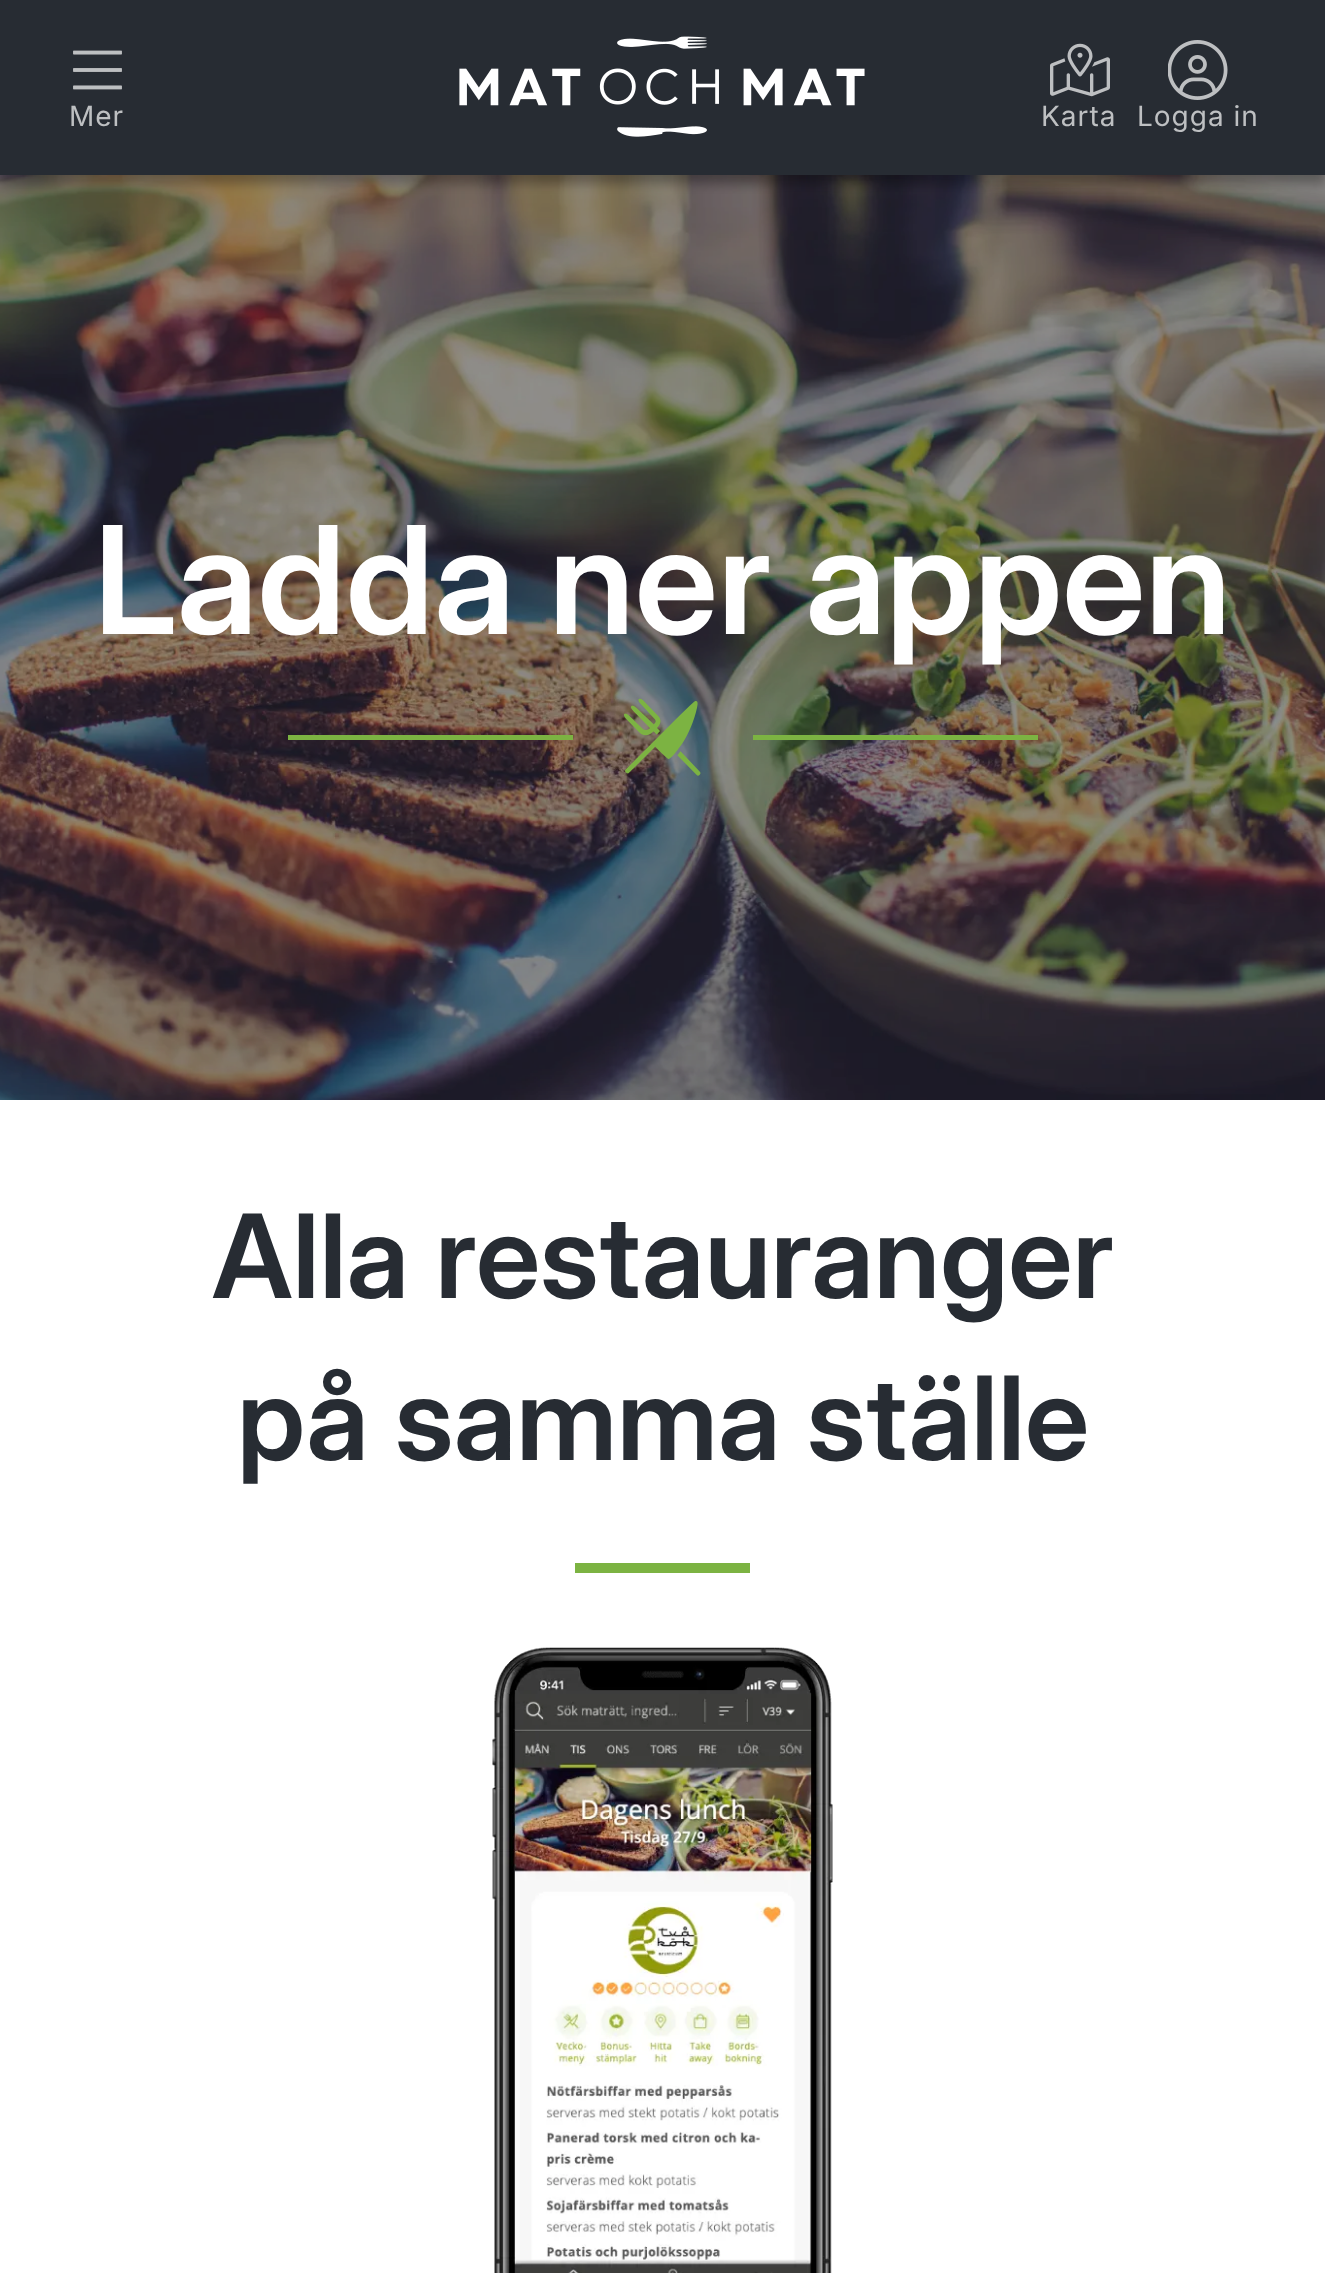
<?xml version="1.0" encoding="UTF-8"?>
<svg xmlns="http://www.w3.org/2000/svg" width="1325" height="2273">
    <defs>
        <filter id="blur1" x="-50%" y="-200%" width="200%" height="500%"><feGaussianBlur stdDeviation="5"/></filter>
    </defs>
    <rect width="100%" height="100%" fill="#FFFFFF"/>
    <image x="0" y="175" width="1325" height="925" href="img_05.png"/>
    <rect x="0" y="10" width="1325" height="175" fill="#000000" fill-opacity="0.24" filter="url(#blur1)"/>
    <rect x="0" y="0" width="1325" height="175" fill="#000000" fill-opacity="0.12" filter="url(#blur1)"/>
    <rect x="0" y="0" width="1325" height="175" fill="#272C33"/>
    <image x="73" y="50" width="49" height="40" href="img_01.png"/>
    <text x="69" y="126" font-family="Inter" font-size="28" letter-spacing="1" fill="#BEC0C2">Mer</text>
    <image x="459" y="36" width="406" height="101" href="img_02.png"/>
    <image x="1050" y="43" width="60" height="54" href="img_03.png"/>
    <text x="1041" y="126" font-family="Inter" font-size="28" letter-spacing="1" fill="#BEC0C2">Karta</text>
    <image x="1168" y="40" width="60" height="60" href="img_04.png"/>
    <text x="1137" y="126" font-family="Inter" font-size="28" letter-spacing="1" fill="#BEC0C2">Logga in</text>
    <text x="94" y="634" font-family="Inter" font-size="150" font-weight="600" fill="#FFFFFF">Ladda ner appen</text>
    <rect x="288" y="735" width="285" height="5" fill="#7CB342"/>
    <image x="624" y="698" width="77" height="78" href="img_06.png"/>
    <rect x="753" y="735" width="285" height="5" fill="#7CB342"/>
    <text x="212" y="1298" font-family="Inter" font-size="116" font-weight="600" fill="#272C33">Alla restauranger</text>
    <text x="237" y="1460" font-family="Inter" font-size="116" font-weight="600" fill="#272C33">på samma ställe</text>
    <rect x="575" y="1563" width="175" height="10" fill="#7CB342"/>
    <image x="492" y="1647" width="341" height="626" href="img_07.png"/>
</svg>
